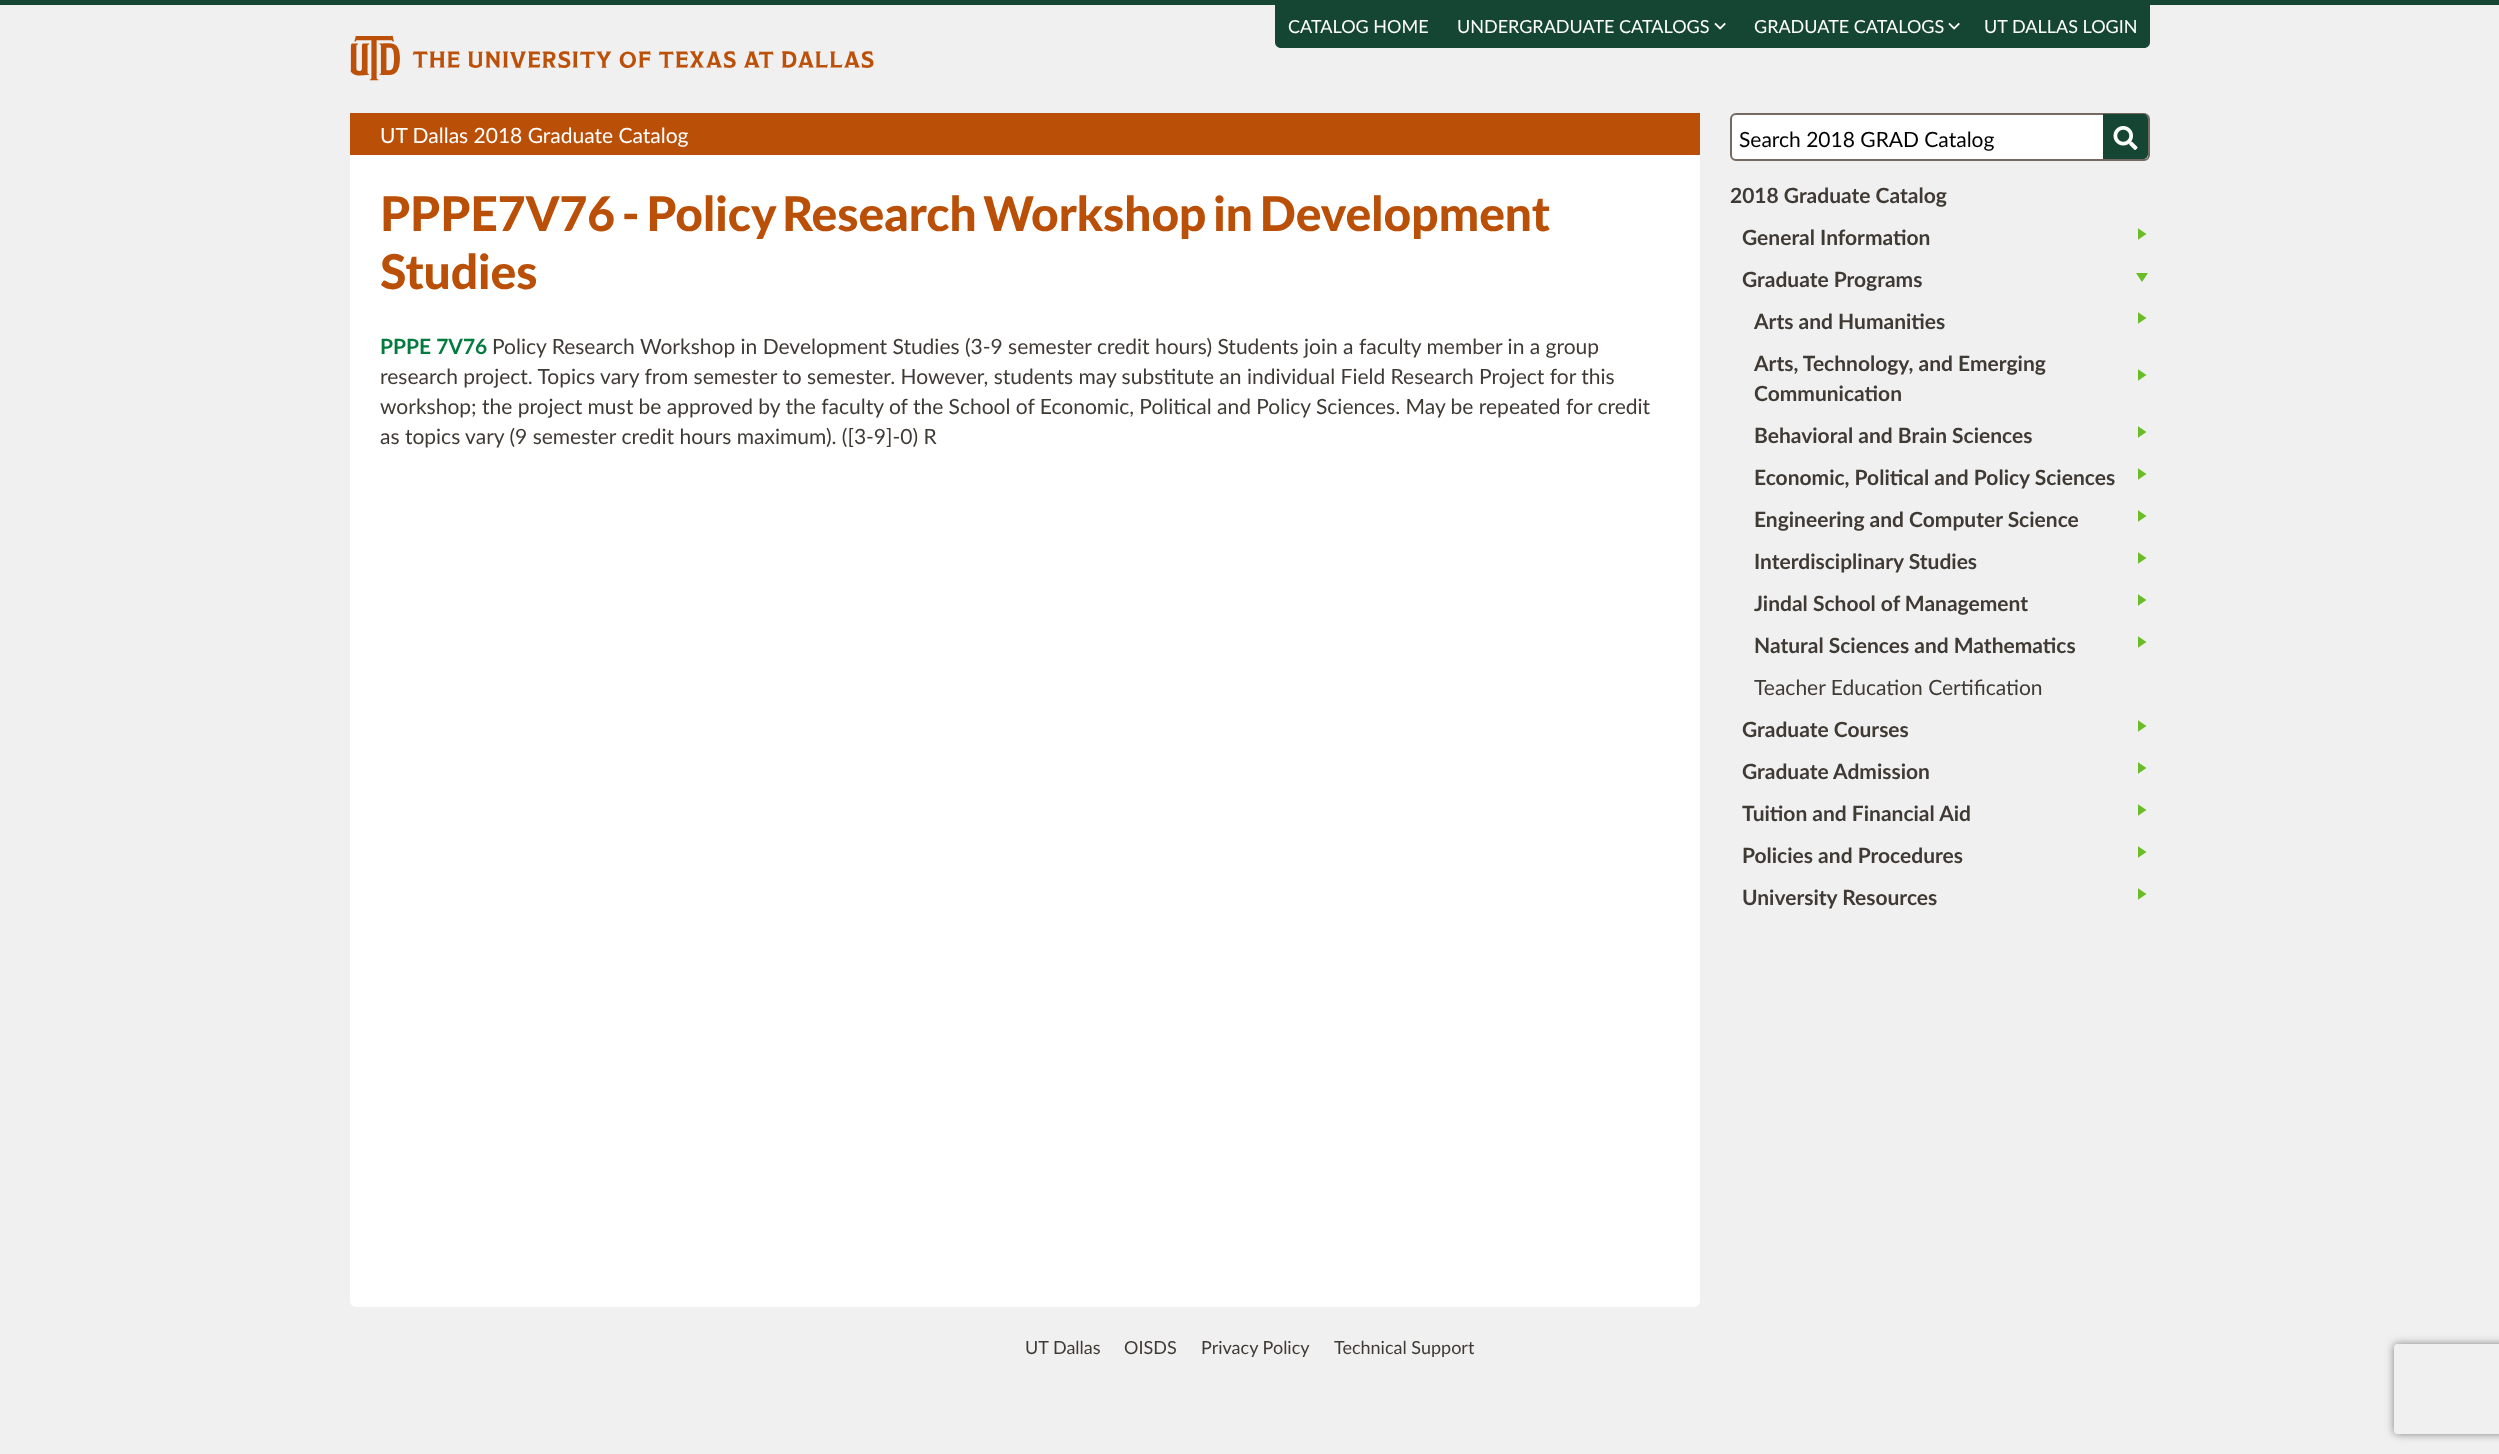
<?xml version="1.0" encoding="UTF-8"?>
<svg xmlns="http://www.w3.org/2000/svg" width="2499" height="1454">
    <defs>
        <clipPath id="clip1"><rect x="2138" y="228" width="12" height="15"/></clipPath>
        <clipPath id="clip2"><rect x="2138" y="312" width="12" height="15"/></clipPath>
        <clipPath id="clip3"><rect x="2138" y="369" width="12" height="15"/></clipPath>
        <clipPath id="clip4"><rect x="2138" y="426" width="12" height="15"/></clipPath>
        <clipPath id="clip5"><rect x="2138" y="468" width="12" height="15"/></clipPath>
        <clipPath id="clip6"><rect x="2138" y="510" width="12" height="15"/></clipPath>
        <clipPath id="clip7"><rect x="2138" y="552" width="12" height="15"/></clipPath>
        <clipPath id="clip8"><rect x="2138" y="594" width="12" height="15"/></clipPath>
        <clipPath id="clip9"><rect x="2138" y="636" width="12" height="15"/></clipPath>
        <clipPath id="clip10"><rect x="2138" y="720" width="12" height="15"/></clipPath>
        <clipPath id="clip11"><rect x="2138" y="762" width="12" height="15"/></clipPath>
        <clipPath id="clip12"><rect x="2138" y="804" width="12" height="15"/></clipPath>
        <clipPath id="clip13"><rect x="2138" y="846" width="12" height="15"/></clipPath>
        <clipPath id="clip14"><rect x="2138" y="888" width="12" height="15"/></clipPath>
        <clipPath id="clip15"><path d="M 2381 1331 H 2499 V 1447 H 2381 Z M 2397 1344 H 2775 C 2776.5 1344 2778 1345.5 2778 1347 V 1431 C 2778 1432.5 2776.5 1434 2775 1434 H 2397 C 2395.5 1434 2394 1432.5 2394 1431 V 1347 C 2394 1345.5 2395.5 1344 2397 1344 Z" clip-rule="evenodd"/></clipPath>
        <filter id="blur1" x="-50%" y="-200%" width="200%" height="500%"><feGaussianBlur stdDeviation="4"/></filter>
    </defs>
    <rect width="100%" height="100%" fill="#F0F0F0"/>
    <rect x="0" y="0" width="2499" height="5" fill="#154633"/>
    <path d="M 1275 5 H 2150 V 42 C 2150 45.5 2147.5 48 2144 48 H 1281 C 1277.5 48 1275 45.5 1275 42 Z" fill="#154633"/>
    <text x="1288" y="33" font-family="Lato" font-size="18" fill="#FFFFFF">CATALOG HOME</text>
    <text x="1457" y="33" font-family="Lato" font-size="18" fill="#FFFFFF">UNDERGRADUATE CATALOGS</text>
    <image x="1714" y="22" width="12" height="8" href="img_01.png"/>
    <text x="1754" y="33" font-family="Lato" font-size="18" fill="#FFFFFF">GRADUATE CATALOGS</text>
    <image x="1948" y="22" width="12" height="8" href="img_01.png"/>
    <text x="1984" y="33" font-family="Lato" font-size="18" fill="#FFFFFF">UT DALLAS LOGIN</text>
    <image x="350" y="35" width="524" height="46" href="img_02.png"/>
    <rect x="350" y="113" width="1350" height="1194" rx="6" fill="#FFFFFF"/>
    <rect x="350" y="113" width="1350" height="42" fill="#BA4F07"/>
    <text x="380" y="143" font-family="Lato" font-size="21" fill="#FFFFFF">UT Dallas 2018 Graduate Catalog</text>
    <text font-family="Lato" font-size="48" font-weight="900" fill="#BA4F07">
        <tspan x="380" y="231" word-spacing="-4.75">PPPE7V76 - Policy Research Workshop in Development</tspan>
        <tspan x="380" y="289">Studies</tspan>
    </text>
    <text x="380" y="354" font-family="Lato" font-size="21" font-weight="700" fill="#037B3F">PPPE 7V76</text>
    <text x="492" y="354" font-family="Lato" font-size="21" fill="#403A34">Policy Research Workshop in Development Studies (3-9 semester credit hours) Students join a faculty member in a group</text>
    <text font-family="Lato" font-size="21" fill="#403A34">
        <tspan x="380" y="384">research project. Topics vary from semester to semester. However, students may substitute an individual Field Research Project for this</tspan>
        <tspan x="380" y="414">workshop; the project must be approved by the faculty of the School of Economic, Political and Policy Sciences. May be repeated for credit</tspan>
        <tspan x="380" y="444">as topics vary (9 semester credit hours maximum). ([3-9]-0) R</tspan>
    </text>
    <rect x="1731" y="114" width="418" height="46" rx="5" fill="#FFFFFF" stroke="#76695F" stroke-width="2"/>
    <text x="1739" y="147" font-family="Lato" font-size="21" fill="#000000">Search 2018 GRAD Catalog</text>
    <path d="M 2103 114 H 2143 C 2146 114 2148 116 2148 119 V 154 C 2148 157 2146 159 2143 159 H 2103 Z" fill="#154633"/>
    <image x="2113" y="126" width="25" height="24" href="img_03.png"/>
    <text x="1730" y="203" font-family="Lato" font-size="21" font-weight="700" fill="#403A34">2018 Graduate Catalog</text>
    <g clip-path="url(#clip1)">
        <path d="M 2137.5 228 L 2146.5 234 L 2137.5 240 Z" fill="#69BE28"/>
    </g>
    <text x="1742" y="245" font-family="Lato" font-size="21" font-weight="700" fill="#403A34">General Information</text>
    <path d="M 2148 273 L 2142 282 L 2136 273 Z" fill="#69BE28"/>
    <text x="1742" y="287" font-family="Lato" font-size="21" font-weight="700" fill="#403A34">Graduate Programs</text>
    <g clip-path="url(#clip2)">
        <path d="M 2137.5 312 L 2146.5 318 L 2137.5 324 Z" fill="#69BE28"/>
    </g>
    <text x="1754" y="329" font-family="Lato" font-size="21" font-weight="700" fill="#403A34">Arts and Humanities</text>
    <g clip-path="url(#clip3)">
        <path d="M 2137.5 369 L 2146.5 375 L 2137.5 381 Z" fill="#69BE28"/>
    </g>
    <text font-family="Lato" font-size="21" font-weight="700" fill="#403A34">
        <tspan x="1754" y="371">Arts, Technology, and Emerging</tspan>
        <tspan x="1754" y="401">Communication</tspan>
    </text>
    <g clip-path="url(#clip4)">
        <path d="M 2137.5 426 L 2146.5 432 L 2137.5 438 Z" fill="#69BE28"/>
    </g>
    <text x="1754" y="443" font-family="Lato" font-size="21" font-weight="700" fill="#403A34">Behavioral and Brain Sciences</text>
    <g clip-path="url(#clip5)">
        <path d="M 2137.5 468 L 2146.5 474 L 2137.5 480 Z" fill="#69BE28"/>
    </g>
    <text x="1754" y="485" font-family="Lato" font-size="21" font-weight="700" fill="#403A34">Economic, Political and Policy Sciences</text>
    <g clip-path="url(#clip6)">
        <path d="M 2137.5 510 L 2146.5 516 L 2137.5 522 Z" fill="#69BE28"/>
    </g>
    <text x="1754" y="527" font-family="Lato" font-size="21" font-weight="700" fill="#403A34">Engineering and Computer Science</text>
    <g clip-path="url(#clip7)">
        <path d="M 2137.5 552 L 2146.5 558 L 2137.5 564 Z" fill="#69BE28"/>
    </g>
    <text x="1754" y="569" font-family="Lato" font-size="21" font-weight="700" fill="#403A34">Interdisciplinary Studies</text>
    <g clip-path="url(#clip8)">
        <path d="M 2137.5 594 L 2146.5 600 L 2137.5 606 Z" fill="#69BE28"/>
    </g>
    <text x="1754" y="611" font-family="Lato" font-size="21" font-weight="700" fill="#403A34">Jindal School of Management</text>
    <g clip-path="url(#clip9)">
        <path d="M 2137.5 636 L 2146.5 642 L 2137.5 648 Z" fill="#69BE28"/>
    </g>
    <text x="1754" y="653" font-family="Lato" font-size="21" font-weight="700" fill="#403A34">Natural Sciences and Mathematics</text>
    <text x="1754" y="695" font-family="Lato" font-size="21" fill="#403A34">Teacher Education Certification</text>
    <g clip-path="url(#clip10)">
        <path d="M 2137.5 720 L 2146.5 726 L 2137.5 732 Z" fill="#69BE28"/>
    </g>
    <text x="1742" y="737" font-family="Lato" font-size="21" font-weight="700" fill="#403A34">Graduate Courses</text>
    <g clip-path="url(#clip11)">
        <path d="M 2137.5 762 L 2146.5 768 L 2137.5 774 Z" fill="#69BE28"/>
    </g>
    <text x="1742" y="779" font-family="Lato" font-size="21" font-weight="700" fill="#403A34">Graduate Admission</text>
    <g clip-path="url(#clip12)">
        <path d="M 2137.5 804 L 2146.5 810 L 2137.5 816 Z" fill="#69BE28"/>
    </g>
    <text x="1742" y="821" font-family="Lato" font-size="21" font-weight="700" fill="#403A34">Tuition and Financial Aid</text>
    <g clip-path="url(#clip13)">
        <path d="M 2137.5 846 L 2146.5 852 L 2137.5 858 Z" fill="#69BE28"/>
    </g>
    <text x="1742" y="863" font-family="Lato" font-size="21" font-weight="700" fill="#403A34">Policies and Procedures</text>
    <g clip-path="url(#clip14)">
        <path d="M 2137.5 888 L 2146.5 894 L 2137.5 900 Z" fill="#69BE28"/>
    </g>
    <text x="1742" y="905" font-family="Lato" font-size="21" font-weight="700" fill="#403A34">University Resources</text>
    <text x="1025" y="1354" font-family="Lato" font-size="18" fill="#403A34">UT Dallas</text>
    <text x="1124" y="1354" font-family="Lato" font-size="18" fill="#403A34">OISDS</text>
    <text x="1201" y="1354" font-family="Lato" font-size="18" fill="#403A34">Privacy Policy</text>
    <text x="1334" y="1354" font-family="Lato" font-size="18" fill="#403A34">Technical Support</text>
    <g clip-path="url(#clip15)">
        <rect x="2394" y="1344" width="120" height="90" rx="3" fill="#808080" filter="url(#blur1)"/>
    </g>
</svg>
